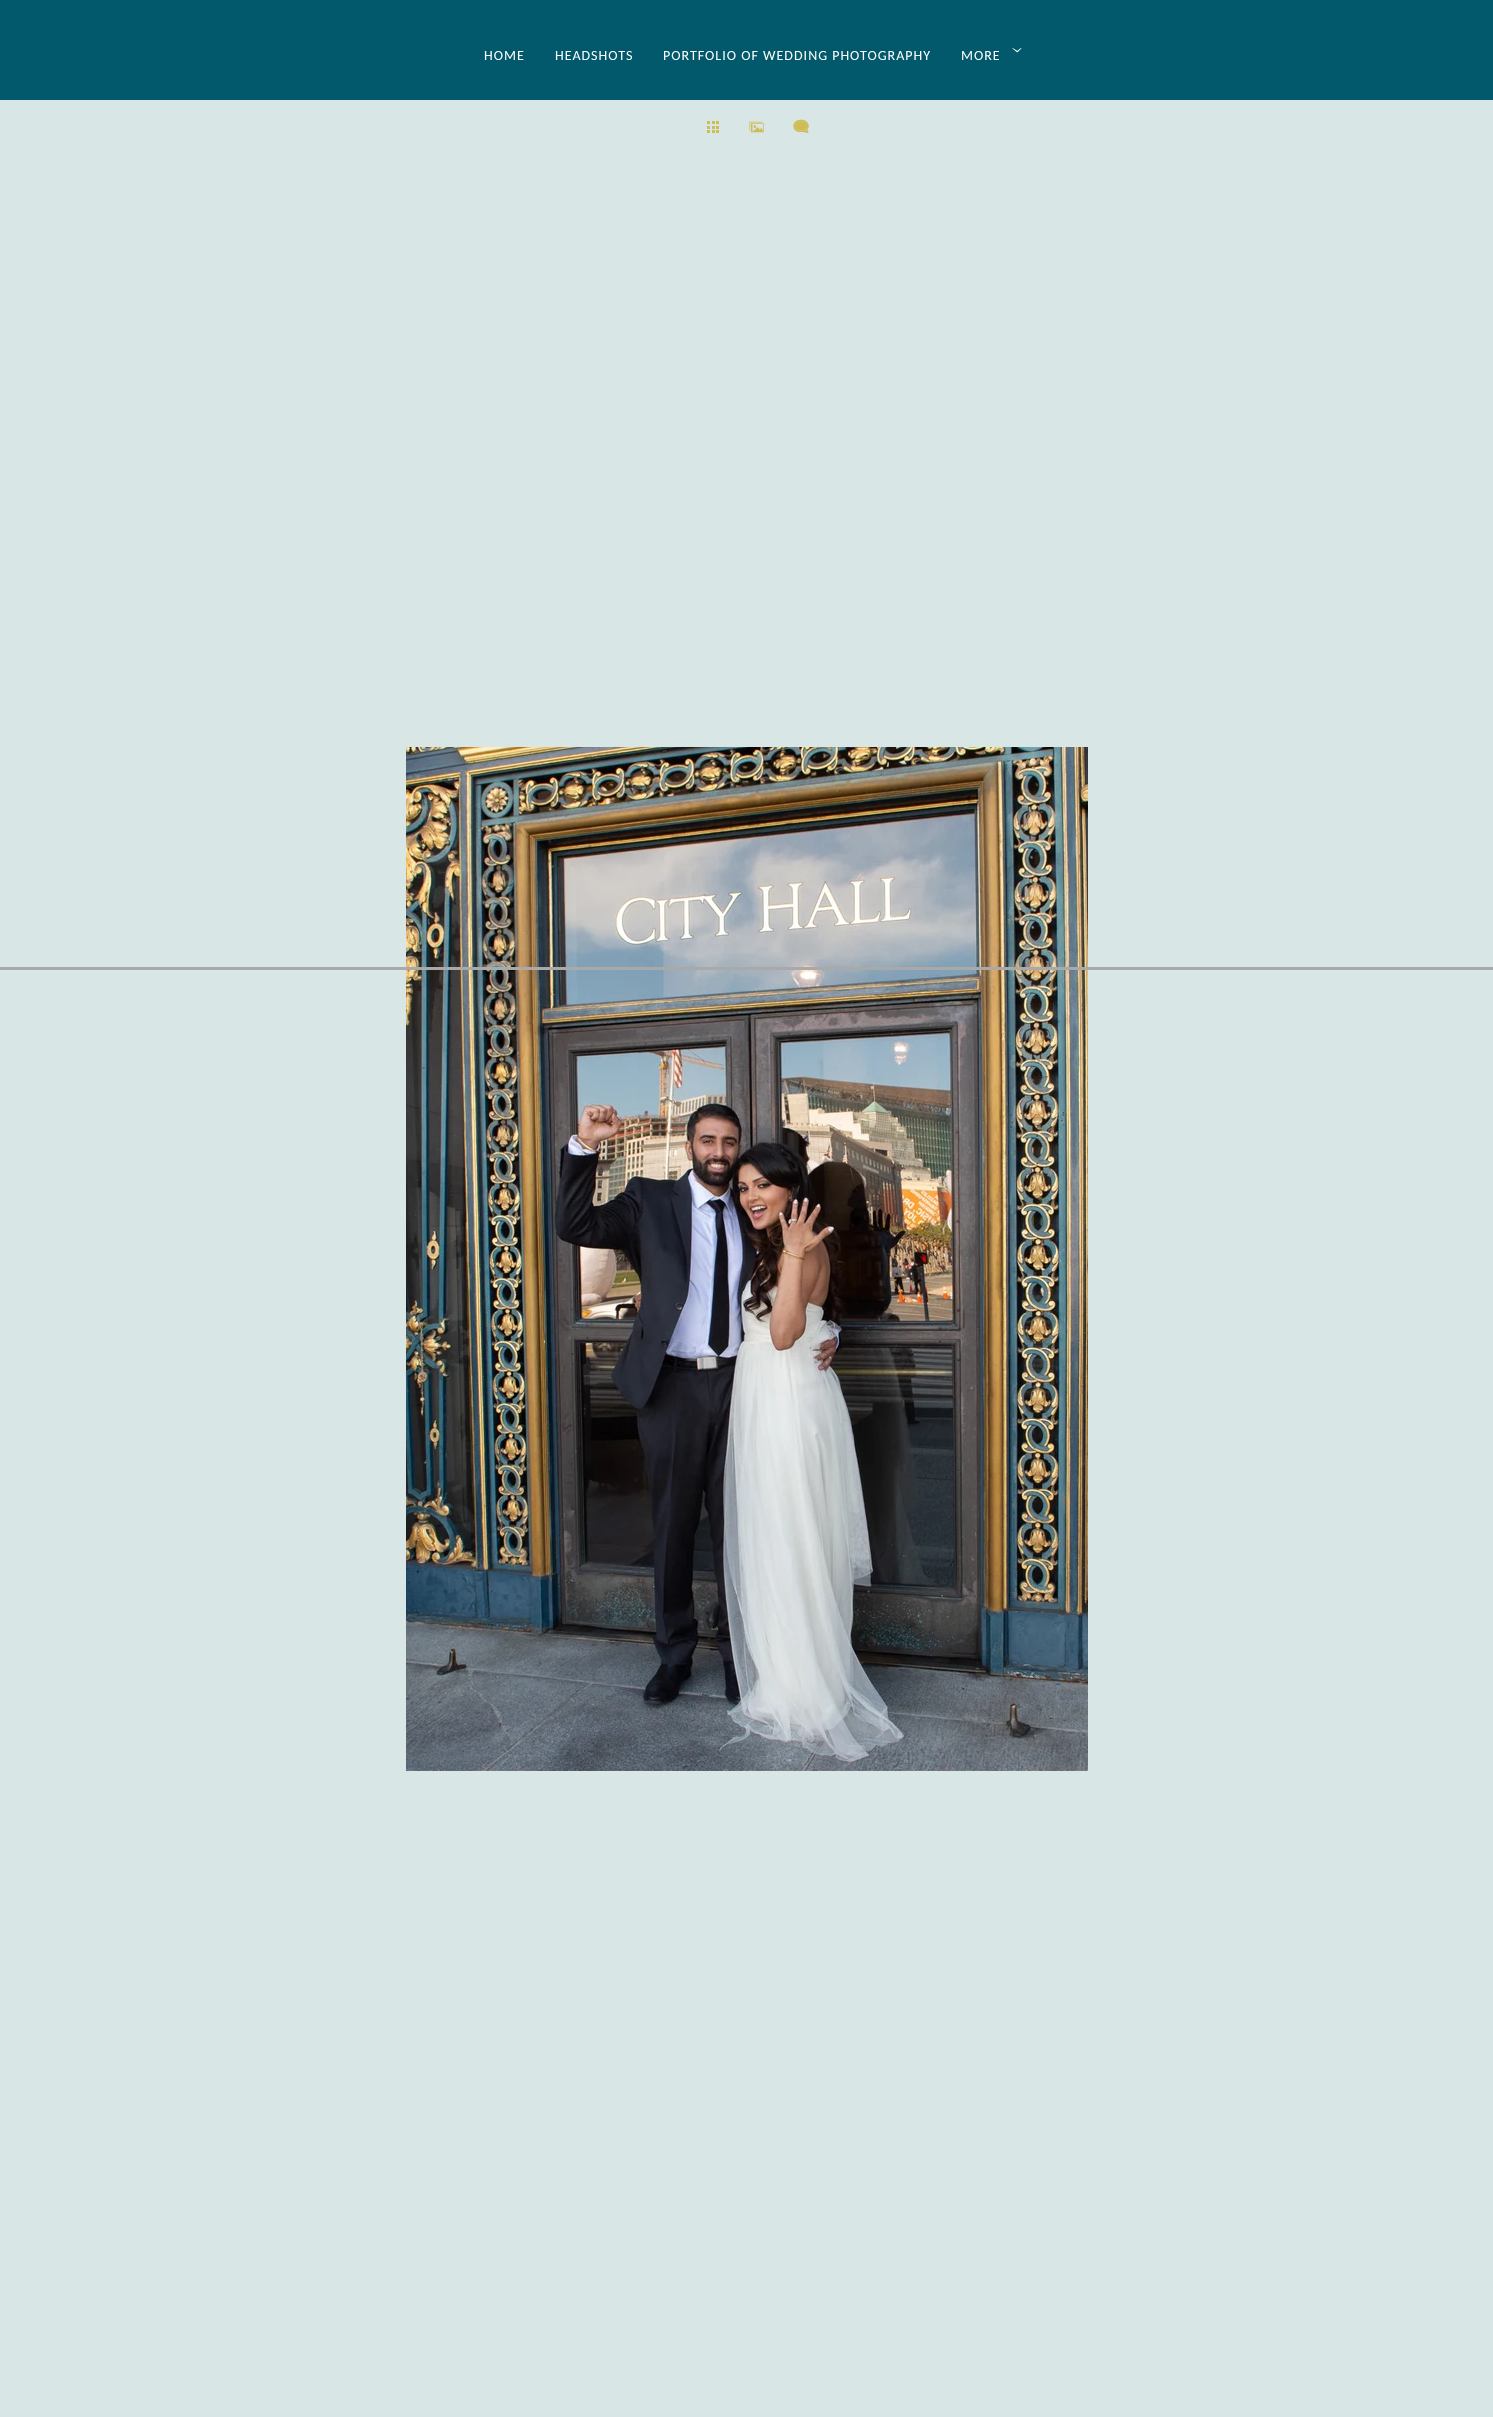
<?xml version="1.0" encoding="UTF-8"?>
<svg xmlns="http://www.w3.org/2000/svg" width="1493" height="2417">
    <rect width="100%" height="100%" fill="#D8E7E6"/>
    <rect x="0" y="0" width="1493" height="100" fill="#01596B"/>
    <text x="484" y="60" font-family="Carlito" font-size="14" letter-spacing="1" fill="#FFFFFF">HOME</text>
    <text x="555" y="60" font-family="Carlito" font-size="14" letter-spacing="1" fill="#FFFFFF">HEADSHOTS</text>
    <text x="663" y="60" font-family="Carlito" font-size="14" letter-spacing="1" fill="#FFFFFF">PORTFOLIO OF WEDDING PHOTOGRAPHY</text>
    <text x="961" y="60" font-family="Carlito" font-size="14" letter-spacing="1" fill="#FFFFFF">MORE</text>
    <image x="1012" y="47" width="10" height="6" href="img_01.png"/>
    <image x="707" y="121" width="12" height="12" href="img_02.png"/>
    <image x="749" y="121" width="15" height="12" href="img_03.png"/>
    <image x="793" y="119" width="16" height="15" href="img_04.png"/>
    <image x="406" y="747" width="682" height="1024" href="img_05.png"/>
    <rect x="0" y="967" width="1493" height="3" fill="#A9A9A9"/>
</svg>
